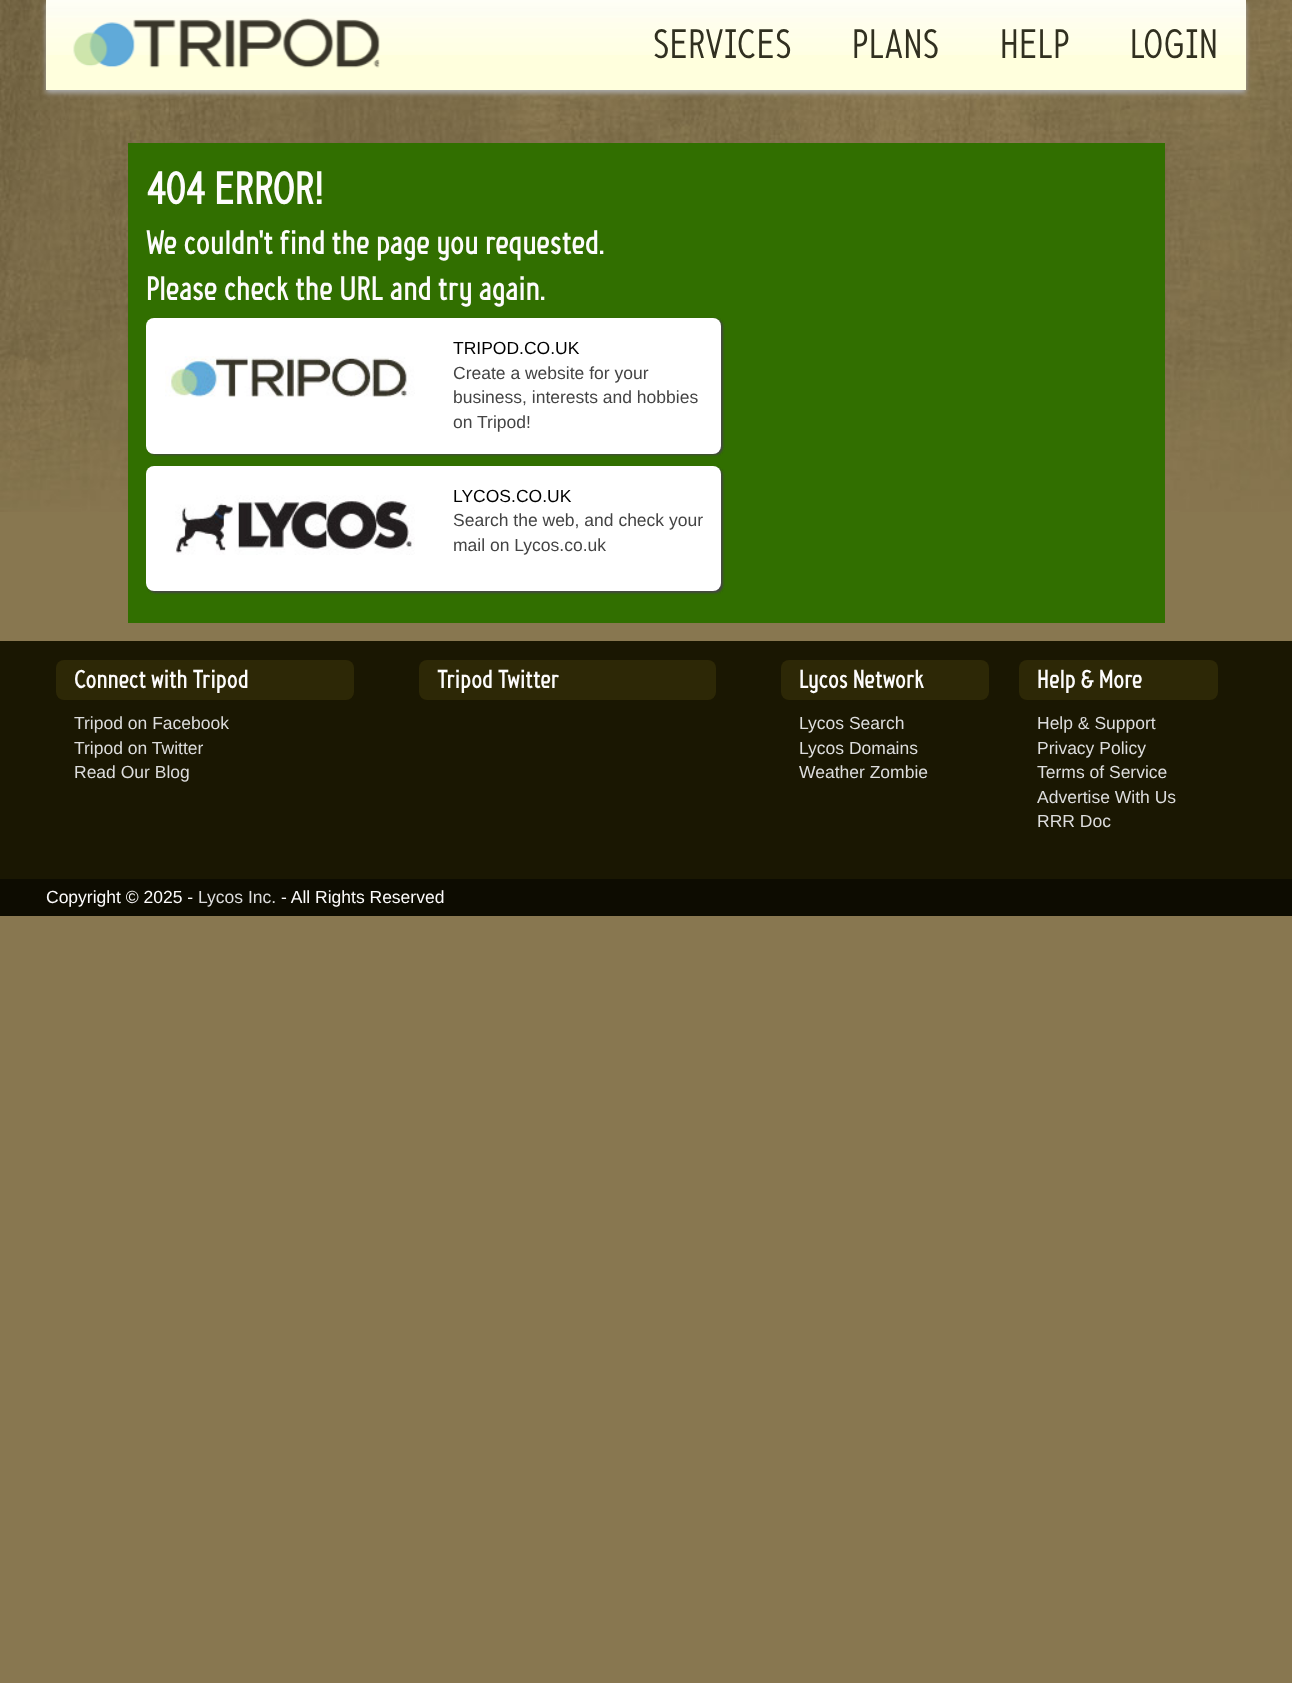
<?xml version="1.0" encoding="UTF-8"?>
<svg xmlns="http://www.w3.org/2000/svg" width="1292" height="1683">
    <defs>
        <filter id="blur1" x="-50%" y="-200%" width="200%" height="500%"><feGaussianBlur stdDeviation="2.5"/></filter>
        <filter id="blur2" x="-50%" y="-200%" width="200%" height="500%"><feGaussianBlur stdDeviation="1"/></filter>
    </defs>
    <rect width="100%" height="100%" fill="#887750"/>
    <image x="0" y="0" width="1292" height="512" href="img_01.png"/>
    <rect x="46" y="3" width="1200" height="90" fill="#AAAAAA" filter="url(#blur1)"/>
    <rect x="46" y="0" width="1200" height="90" fill="#FFFFDD"/>
    <image x="46" y="0" width="1200" height="55" href="img_02.png"/>
    <image x="73" y="18" width="307" height="50" href="img_03.png"/>
    <text x="653" y="58" font-family="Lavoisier" font-size="41" letter-spacing="0.5" fill="#313020">SERVICES</text>
    <text x="852" y="58" font-family="Lavoisier" font-size="41" letter-spacing="0.5" fill="#313020">PLANS</text>
    <text x="1000" y="58" font-family="Lavoisier" font-size="41" letter-spacing="0.5" fill="#313020">HELP</text>
    <text x="1130" y="58" font-family="Lavoisier" font-size="41" letter-spacing="0.5" fill="#313020">LOGIN</text>
    <rect x="128" y="143" width="1037" height="480" fill="#316F00"/>
    <text x="146" y="204" font-family="Lavoisier" font-size="45" font-weight="700" letter-spacing="0.5" fill="#FDFCFC">404 ERROR!</text>
    <text font-family="Lavoisier" font-size="32.5" font-weight="700" letter-spacing="0.65" fill="#FDFCFC">
        <tspan x="146" y="254">We couldn't find the page you requested.</tspan>
        <tspan x="146" y="300">Please check the URL and try again.</tspan>
    </text>
    <rect x="148" y="319" width="575" height="136" rx="8" fill="#444444" filter="url(#blur2)"/>
    <rect x="146" y="318" width="575" height="136" rx="8" fill="#FFFFFF"/>
    <image x="165" y="356" width="250" height="41" href="img_04.png"/>
    <text x="453" y="354" font-family="Liberation Sans" font-size="17.5" fill="#000000">TRIPOD.CO.UK</text>
    <text font-family="Liberation Sans" font-size="17.5" fill="#444444">
        <tspan x="453" y="379">Create a website for your</tspan>
        <tspan x="453" y="403">business, interests and hobbies</tspan>
        <tspan x="453" y="428">on Tripod!</tspan>
    </text>
    <rect x="148" y="468" width="575" height="125" rx="8" fill="#444444" filter="url(#blur2)"/>
    <rect x="146" y="466" width="575" height="125" rx="8" fill="#FFFFFF"/>
    <image x="175" y="495" width="240" height="60" href="img_05.png"/>
    <text x="453" y="502" font-family="Liberation Sans" font-size="17.5" fill="#000000">LYCOS.CO.UK</text>
    <text font-family="Liberation Sans" font-size="17.5" fill="#444444">
        <tspan x="453" y="526">Search the web, and check your</tspan>
        <tspan x="453" y="551">mail on Lycos.co.uk</tspan>
    </text>
    <rect x="0" y="641" width="1292" height="238" fill="#1A1702"/>
    <rect x="56" y="660" width="298" height="40" rx="8" fill="#2D2806"/>
    <text x="74" y="688" font-family="Lavoisier" font-size="25" font-weight="700" letter-spacing="0.5" fill="#FDFCFC">Connect with Tripod</text>
    <text font-family="Liberation Sans" font-size="17.5" fill="#DDDDDD">
        <tspan x="74" y="729">Tripod on Facebook</tspan>
        <tspan x="74" y="754">Tripod on Twitter</tspan>
        <tspan x="74" y="778">Read Our Blog</tspan>
    </text>
    <rect x="419" y="660" width="297" height="40" rx="8" fill="#2D2806"/>
    <text x="437" y="688" font-family="Lavoisier" font-size="25" font-weight="700" letter-spacing="0.5" fill="#FDFCFC">Tripod Twitter</text>
    <rect x="781" y="660" width="208" height="40" rx="8" fill="#2D2806"/>
    <text x="799" y="688" font-family="Lavoisier" font-size="25" font-weight="700" letter-spacing="0.5" fill="#FDFCFC">Lycos Network</text>
    <text font-family="Liberation Sans" font-size="17.5" fill="#DDDDDD">
        <tspan x="799" y="729">Lycos Search</tspan>
        <tspan x="799" y="754">Lycos Domains</tspan>
        <tspan x="799" y="778">Weather Zombie</tspan>
    </text>
    <rect x="1019" y="660" width="199" height="40" rx="8" fill="#2D2806"/>
    <text x="1037" y="688" font-family="Lavoisier" font-size="25" font-weight="700" letter-spacing="0.5" fill="#FDFCFC">Help &amp; More</text>
    <text font-family="Liberation Sans" font-size="17.5" fill="#DDDDDD">
        <tspan x="1037" y="729">Help &amp; Support</tspan>
        <tspan x="1037" y="754">Privacy Policy</tspan>
        <tspan x="1037" y="778">Terms of Service</tspan>
        <tspan x="1037" y="803">Advertise With Us</tspan>
        <tspan x="1037" y="827">RRR Doc</tspan>
    </text>
    <rect x="0" y="879" width="1292" height="37" fill="#0D0C01"/>
    <text x="46" y="903" font-family="Liberation Sans" font-size="17.5" fill="#FDFCFC">Copyright © 2025 -</text>
    <text x="198" y="903" font-family="Liberation Sans" font-size="17.5" fill="#DDDDDD">Lycos Inc.</text>
    <text x="281" y="903" font-family="Liberation Sans" font-size="17.5" fill="#FDFCFC">- All Rights Reserved</text>
</svg>
